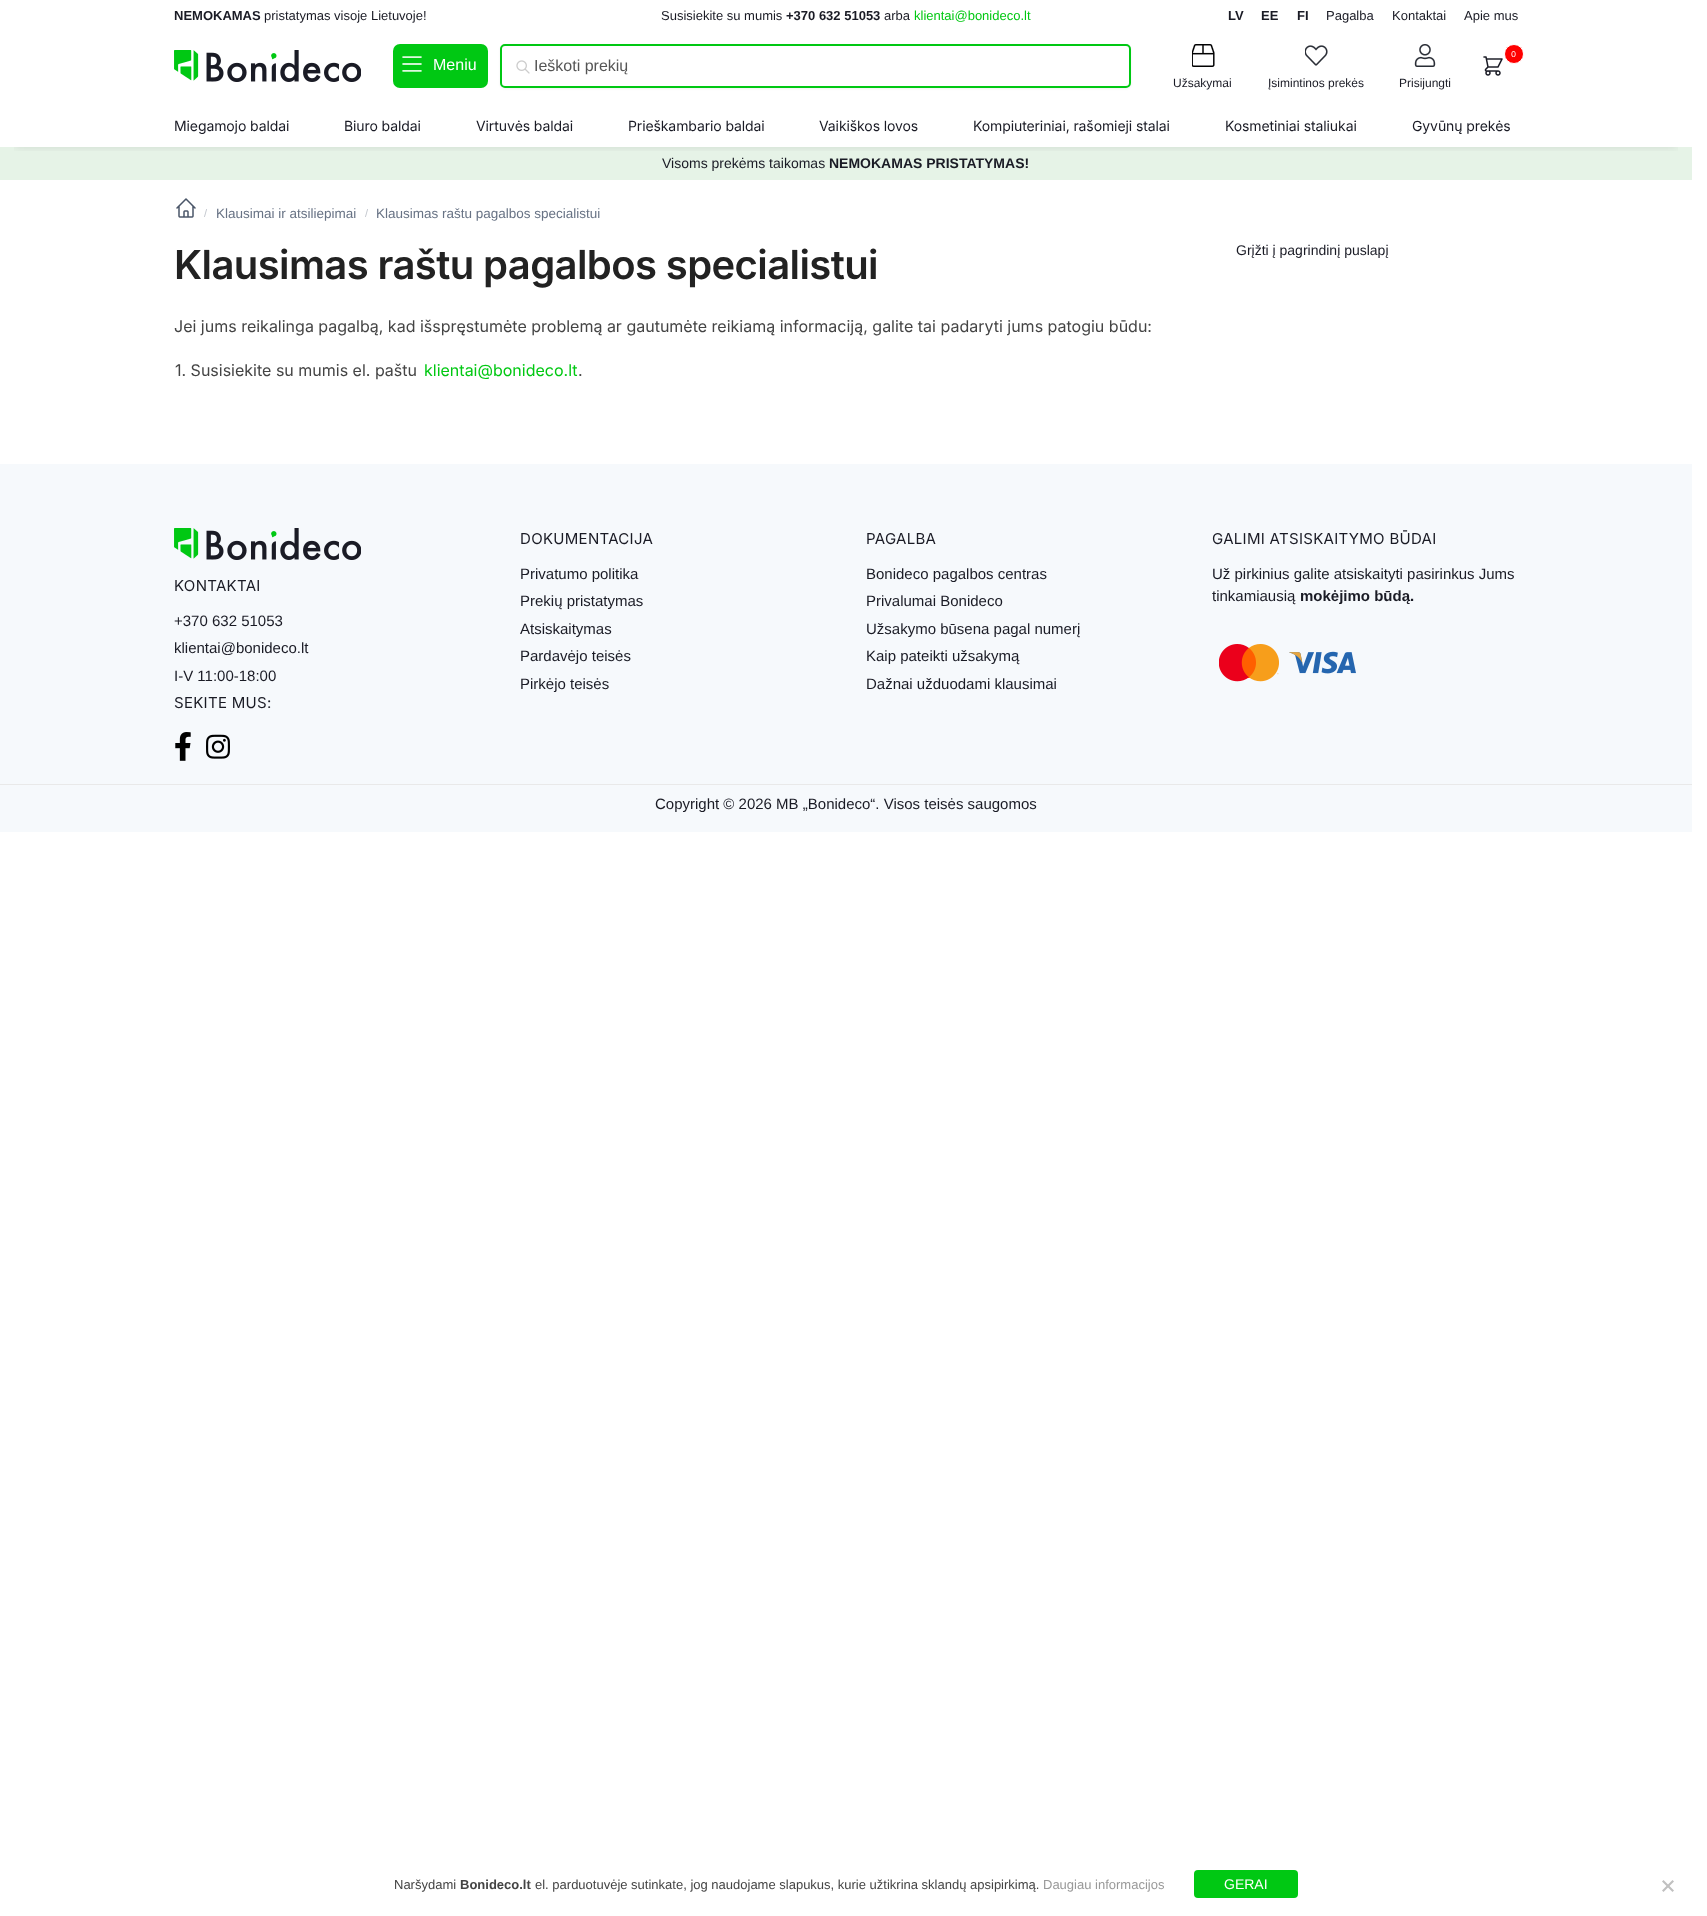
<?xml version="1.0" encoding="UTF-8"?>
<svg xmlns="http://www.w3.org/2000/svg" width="1707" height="1916">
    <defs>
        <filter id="blur1" x="-50%" y="-200%" width="200%" height="500%"><feGaussianBlur stdDeviation="1"/></filter>
        <clipPath id="clip1"><rect x="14" y="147" width="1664" height="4"/></clipPath>
        <filter id="blur2" x="-50%" y="-200%" width="200%" height="500%"><feGaussianBlur stdDeviation="5"/></filter>
    </defs>
    <rect width="100%" height="100%" fill="#FFFFFF"/>
    <text x="174" y="20" font-family="Liberation Sans" font-size="13" font-weight="700" fill="#1A1B25">NEMOKAMAS</text>
    <text x="264" y="20" font-family="Liberation Sans" font-size="13" fill="#1A1B25">pristatymas visoje Lietuvoje!</text>
    <text x="661" y="20" font-family="Liberation Sans" font-size="13" fill="#1A1B25">Susisiekite su mumis</text>
    <text x="786" y="20" font-family="Liberation Sans" font-size="13" font-weight="700" fill="#1A1B25">+370 632 51053</text>
    <text x="884" y="20" font-family="Liberation Sans" font-size="13" fill="#1A1B25">arba</text>
    <text x="914" y="20" font-family="Liberation Sans" font-size="13" fill="#01C812">klientai@bonideco.lt</text>
    <text x="1228" y="20" font-family="Liberation Sans" font-size="13" font-weight="700" fill="#1A1B25">LV</text>
    <text x="1261" y="20" font-family="Liberation Sans" font-size="13" font-weight="700" fill="#1A1B25">EE</text>
    <text x="1297" y="20" font-family="Liberation Sans" font-size="13" font-weight="700" fill="#1A1B25">FI</text>
    <text x="1326" y="20" font-family="Liberation Sans" font-size="13" fill="#1A1B25">Pagalba</text>
    <text x="1392" y="20" font-family="Liberation Sans" font-size="13" fill="#1A1B25">Kontaktai</text>
    <text x="1464" y="20" font-family="Liberation Sans" font-size="13" fill="#1A1B25">Apie mus</text>
    <image x="174" y="50" width="187" height="32" href="img_01.png"/>
    <circle cx="1514" cy="54" r="9.5" fill="#FF0000" stroke="#FFFFFF"/>
    <text x="1511" y="57" font-family="Inter" font-size="8" letter-spacing="-0.1" fill="#FFFFFF">0</text>
    <image x="1483" y="56" width="20" height="20" href="img_02.png"/>
    <rect x="393" y="44" width="95" height="44" rx="7" fill="#00C813"/>
    <image x="402" y="56" width="20" height="16" href="img_03.png"/>
    <text x="433" y="70" font-family="Liberation Sans" font-size="16" fill="#FFFFFF">Meniu</text>
    <rect x="500" y="45" width="631" height="44" rx="5" fill="#000000" fill-opacity="0.05" filter="url(#blur1)"/>
    <rect x="501" y="45" width="629" height="42" rx="4" fill="#FFFFFF" stroke="#00C813" stroke-width="2"/>
    <image x="516" y="60" width="14" height="14" href="img_04.png"/>
    <text x="534" y="71" font-family="Liberation Sans" font-size="16" fill="#555555">Ieškoti prekių</text>
    <image x="1192" y="44" width="23" height="23" href="img_05.png"/>
    <text x="1173" y="87" font-family="Liberation Sans" font-size="12" fill="#1A1B25">Užsakymai</text>
    <image x="1305" y="45" width="23" height="21" href="img_06.png"/>
    <text x="1268" y="87" font-family="Liberation Sans" font-size="12" fill="#1A1B25">Įsimintinos prekės</text>
    <image x="1414" y="44" width="22" height="23" href="img_07.png"/>
    <text x="1399" y="87" font-family="Liberation Sans" font-size="12" fill="#1A1B25">Prisijungti</text>
    <rect x="0" y="147" width="1692" height="33" fill="#E6F3E7"/>
    <g clip-path="url(#clip1)">
        <rect x="15" y="130" width="1662" height="17" fill="#000000" fill-opacity="0.1" filter="url(#blur2)"/>
    </g>
    <text x="174" y="131" font-family="Inter" font-size="14" letter-spacing="-0.1" fill="#1A1B25">Miegamojo baldai</text>
    <text x="344" y="131" font-family="Inter" font-size="14" letter-spacing="-0.1" fill="#1A1B25">Biuro baldai</text>
    <text x="476" y="131" font-family="Inter" font-size="14" letter-spacing="-0.1" fill="#1A1B25">Virtuvės baldai</text>
    <text x="628" y="131" font-family="Inter" font-size="14" letter-spacing="-0.1" fill="#1A1B25">Prieškambario baldai</text>
    <text x="819" y="131" font-family="Inter" font-size="14" letter-spacing="-0.1" fill="#1A1B25">Vaikiškos lovos</text>
    <text x="973" y="131" font-family="Inter" font-size="14" letter-spacing="-0.1" fill="#1A1B25">Kompiuteriniai, rašomieji stalai</text>
    <text x="1225" y="131" font-family="Inter" font-size="14" letter-spacing="-0.1" fill="#1A1B25">Kosmetiniai staliukai</text>
    <text x="1412" y="131" font-family="Inter" font-size="14" letter-spacing="-0.1" fill="#1A1B25">Gyvūnų prekės</text>
    <text x="662" y="168" font-family="Liberation Sans" font-size="14" fill="#1A1B25">Visoms prekėms taikomas</text>
    <text x="829" y="168" font-family="Liberation Sans" font-size="14" font-weight="700" fill="#1A1B25">NEMOKAMAS PRISTATYMAS!</text>
    <image x="176" y="198" width="20" height="20" href="img_08.png"/>
    <text x="204" y="217" font-family="Liberation Sans" font-size="11" fill="#C3C7CE">/</text>
    <text x="216" y="218" font-family="Liberation Sans" font-size="13.5" fill="#687385">Klausimai ir atsiliepimai</text>
    <text x="365" y="217" font-family="Liberation Sans" font-size="11" fill="#C3C7CE">/</text>
    <text x="376" y="218" font-family="Liberation Sans" font-size="13.5" fill="#687385">Klausimas raštu pagalbos specialistui</text>
    <text x="174" y="279" font-family="Inter" font-size="40" font-weight="600" letter-spacing="-0.6" fill="#222222">Klausimas raštu pagalbos specialistui</text>
    <text x="174" y="332" font-family="Inter" font-size="16" fill="#444444">Jei jums reikalinga pagalbą, kad išspręstumėte problemą ar gautumėte reikiamą informaciją, galite tai padaryti jums patogiu būdu:</text>
    <text x="175" y="376" font-family="Inter" font-size="16" fill="#444444">1. Susisiekite su mumis el. paštu</text>
    <text x="424" y="376" font-family="Inter" font-size="16" fill="#01C812">klientai@bonideco.lt</text>
    <text x="578" y="376" font-family="Inter" font-size="16" fill="#444444">.</text>
    <text x="1236" y="255" font-family="Liberation Sans" font-size="14" fill="#1A1B25">Grįžti į pagrindinį puslapį</text>
    <rect x="0" y="464" width="1692" height="368" fill="#F6F9FC"/>
    <image x="174" y="528" width="187" height="32" href="img_09.png"/>
    <text x="174" y="591" font-family="Inter" font-size="15" letter-spacing="0.3" fill="#1A1B25">KONTAKTAI</text>
    <text font-family="Liberation Sans" font-size="15" fill="#1A1B25">
        <tspan x="174" y="626">+370 632 51053</tspan>
        <tspan x="174" y="653">klientai@bonideco.lt</tspan>
        <tspan x="174" y="681">I-V 11:00-18:00</tspan>
    </text>
    <text x="174" y="708" font-family="Inter" font-size="15" letter-spacing="0.3" fill="#1A1B25">SEKITE MUS:</text>
    <image x="175" y="732" width="16" height="29" href="img_10.png"/>
    <image x="206" y="734" width="24" height="25" href="img_11.png"/>
    <text x="520" y="544" font-family="Inter" font-size="15" letter-spacing="0.3" fill="#1A1B25">DOKUMENTACIJA</text>
    <text font-family="Liberation Sans" font-size="15" fill="#1A1B25">
        <tspan x="520" y="579">Privatumo politika</tspan>
        <tspan x="520" y="606">Prekių pristatymas</tspan>
        <tspan x="520" y="634">Atsiskaitymas</tspan>
        <tspan x="520" y="661">Pardavėjo teisės</tspan>
        <tspan x="520" y="689">Pirkėjo teisės</tspan>
    </text>
    <text x="866" y="544" font-family="Inter" font-size="15" letter-spacing="0.3" fill="#1A1B25">PAGALBA</text>
    <text font-family="Liberation Sans" font-size="15" fill="#1A1B25">
        <tspan x="866" y="579">Bonideco pagalbos centras</tspan>
        <tspan x="866" y="606">Privalumai Bonideco</tspan>
        <tspan x="866" y="634">Užsakymo būsena pagal numerį</tspan>
        <tspan x="866" y="661">Kaip pateikti užsakymą</tspan>
        <tspan x="866" y="689">Dažnai užduodami klausimai</tspan>
    </text>
    <text x="1212" y="544" font-family="Inter" font-size="15" letter-spacing="0.3" fill="#1A1B25">GALIMI ATSISKAITYMO BŪDAI</text>
    <text font-family="Liberation Sans" font-size="15" fill="#1A1B25">
        <tspan x="1212" y="579">Už pirkinius galite atsiskaityti pasirinkus Jums</tspan>
        <tspan x="1212" y="601">tinkamiausią</tspan>
    </text>
    <text x="1300" y="601" font-family="Liberation Sans" font-size="15" font-weight="700" fill="#1A1B25">mokėjimo būdą.</text>
    <image x="1219" y="644" width="137" height="38" href="img_12.png"/>
    <rect x="0" y="784" width="1692" height="1" fill="#E9E9E9"/>
    <text x="655" y="809" font-family="Liberation Sans" font-size="15" fill="#1A1B25">Copyright © 2026 MB „Bonideco“. Visos teisės saugomos</text>
    <text x="394" y="1889" font-family="Liberation Sans" font-size="13" fill="#444444">Naršydami</text>
    <text x="460" y="1889" font-family="Liberation Sans" font-size="13" font-weight="700" fill="#444444">Bonideco.lt</text>
    <text x="535" y="1889" font-family="Liberation Sans" font-size="13" fill="#444444">el. parduotuvėje sutinkate, jog naudojame slapukus, kurie užtikrina sklandų apsipirkimą.</text>
    <text x="1043" y="1889" font-family="Liberation Sans" font-size="13" fill="#999999">Daugiau informacijos</text>
    <rect x="1194" y="1870" width="104" height="28" rx="4" fill="#00C813"/>
    <text x="1224" y="1889" font-family="Liberation Sans" font-size="14" fill="#FFFFFF">GERAI</text>
    <path d="M 1672.5 1880 L 1674 1881.5 L 1663.5 1892 L 1662 1890.5 Z" fill="#C0C0C0"/>
    <path d="M 1662 1881.5 L 1663.5 1880 L 1674 1890.5 L 1672.5 1892 Z" fill="#C0C0C0"/>
</svg>
